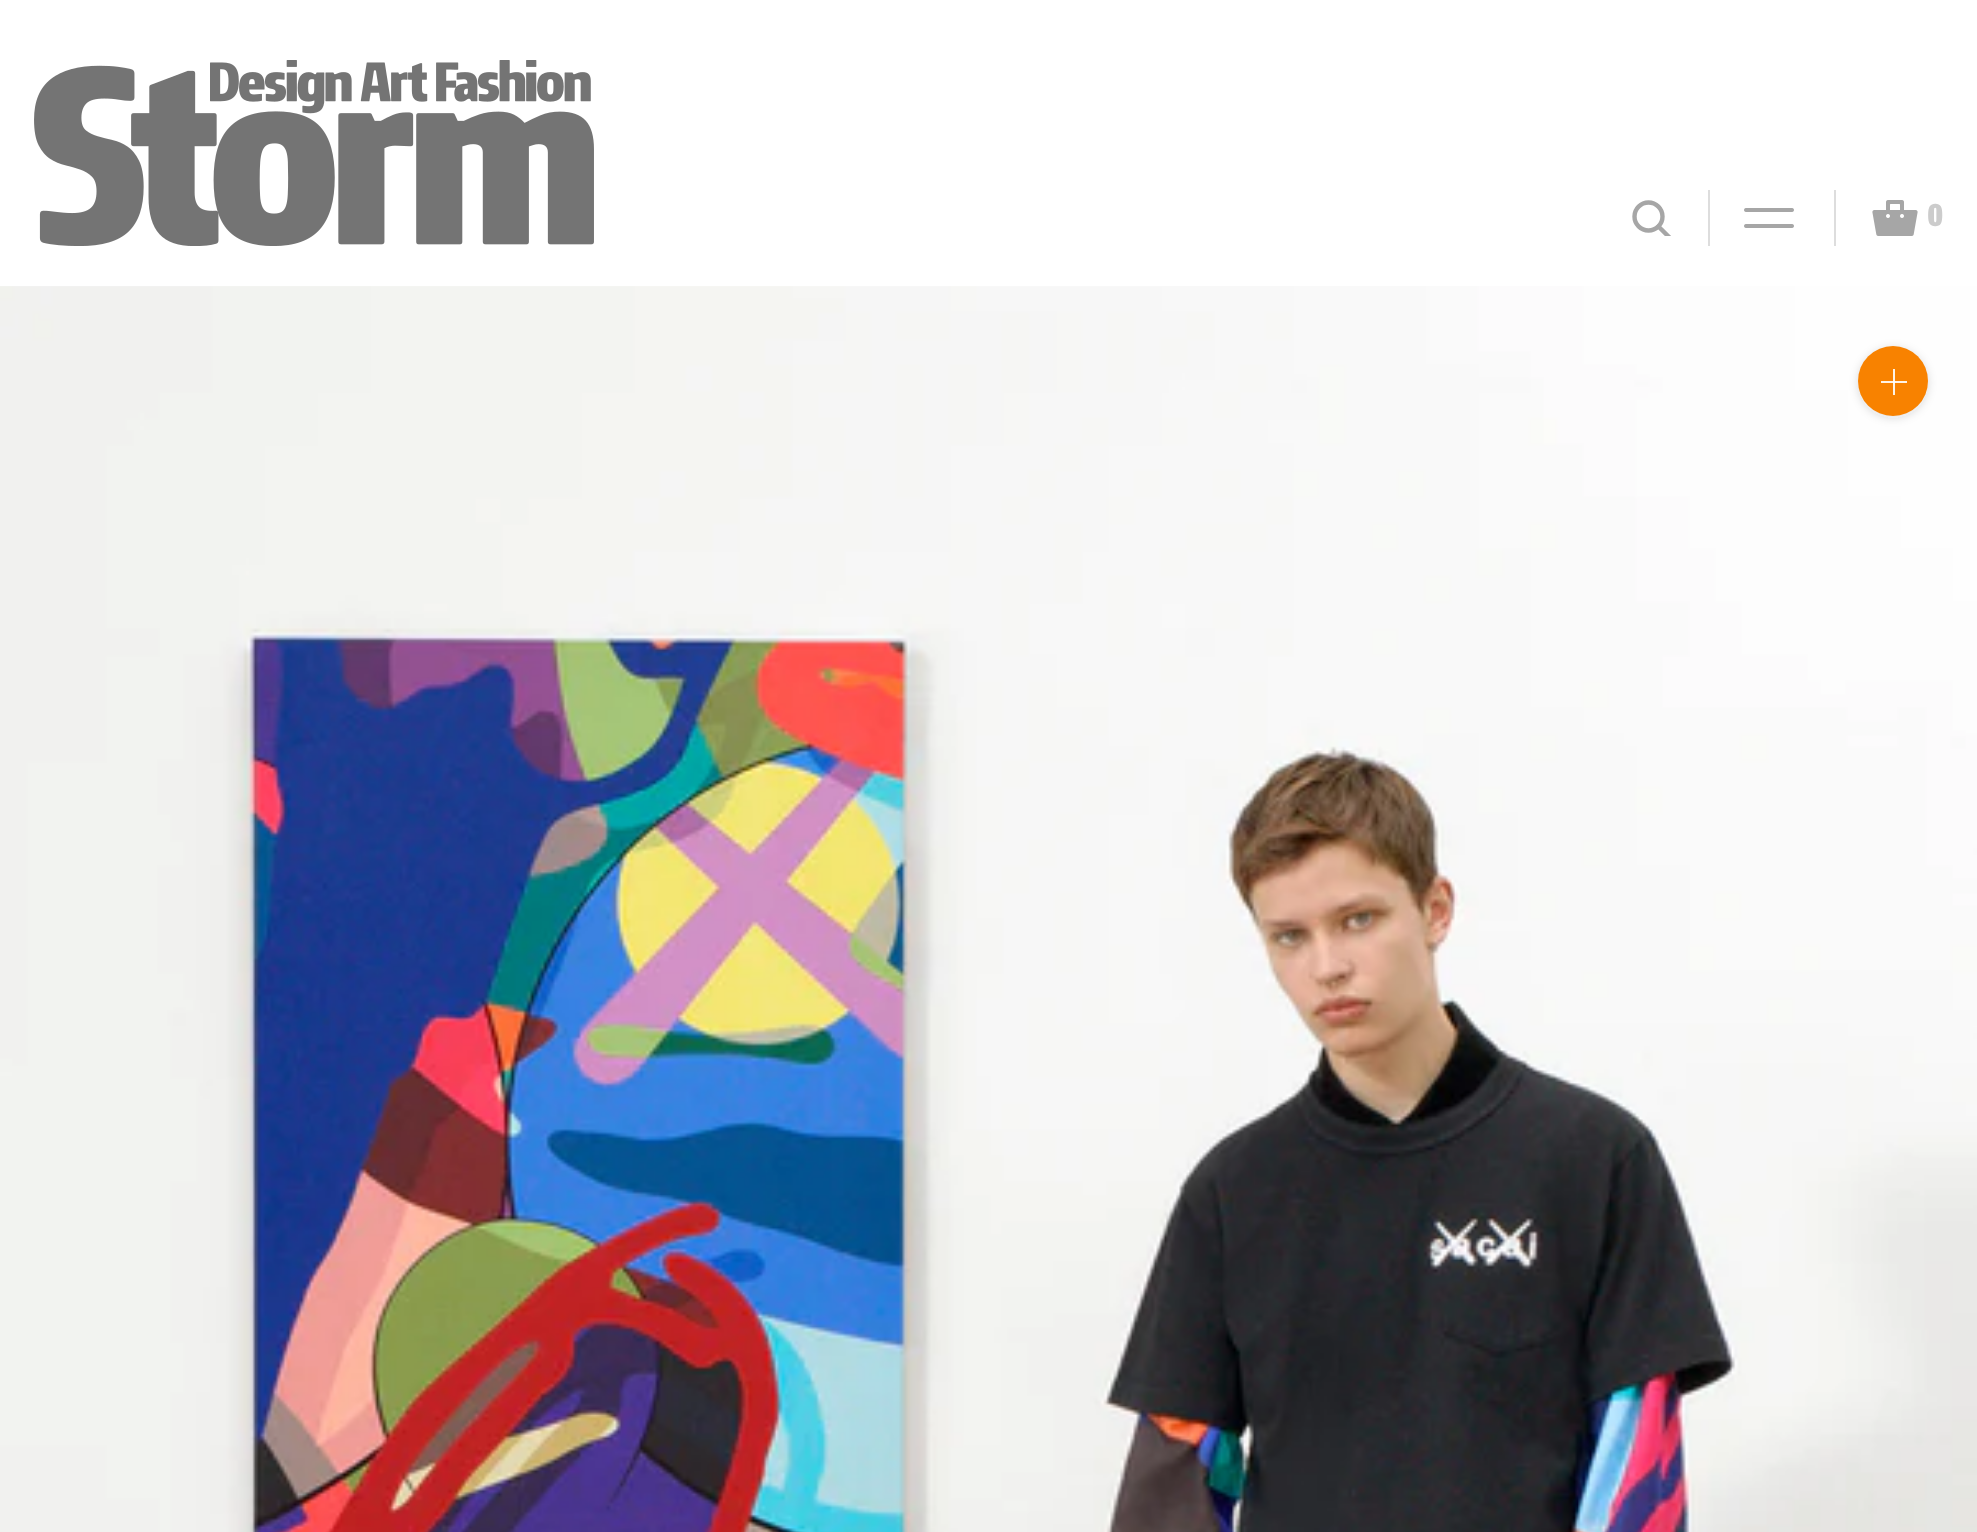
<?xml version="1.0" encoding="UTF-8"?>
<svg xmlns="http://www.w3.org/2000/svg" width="1977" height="1532">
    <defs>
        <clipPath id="clip1"><rect x="1632" y="200" width="40" height="36"/></clipPath>
        <filter id="blur1" x="-50%" y="-200%" width="200%" height="500%"><feGaussianBlur stdDeviation="5"/></filter>
    </defs>
    <rect width="100%" height="100%" fill="#FFFFFF"/>
    <image x="34" y="60" width="560" height="186" href="img_01.png"/>
    <g clip-path="url(#clip1)">
        <path d="M 1670 238 L 1658.5 226.5" fill="none" stroke="#A6A6A6" stroke-width="4.4" stroke-linecap="square"/>
    </g>
    <circle cx="1648.5" cy="216.5" r="14" fill="none" stroke="#A6A6A6" stroke-width="4.4"/>
    <rect x="1708" y="190" width="2" height="56" fill="#DDDDDD"/>
    <image x="1744" y="208" width="50" height="20" href="img_02.png"/>
    <rect x="1834" y="190" width="2" height="56" fill="#DDDDDD"/>
    <image x="1872" y="200" width="46" height="36" href="img_03.png"/>
    <text x="1928" y="226" font-family="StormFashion" font-size="32" font-weight="700" letter-spacing="2" fill="#CCCCCC">0</text>
    <image x="0" y="286" width="1977" height="1246" href="img_04.png"/>
    <rect x="1858" y="348" width="70" height="70" rx="35" fill="#363636" fill-opacity="0.15" filter="url(#blur1)"/>
    <circle cx="1893" cy="381" r="35" fill="#F88200"/>
    <rect x="1893" y="369" width="2" height="26" fill="#FEF3E6"/>
    <rect x="1881" y="381" width="26" height="2" fill="#FFFFFF" fill-opacity="0.9"/>
</svg>
